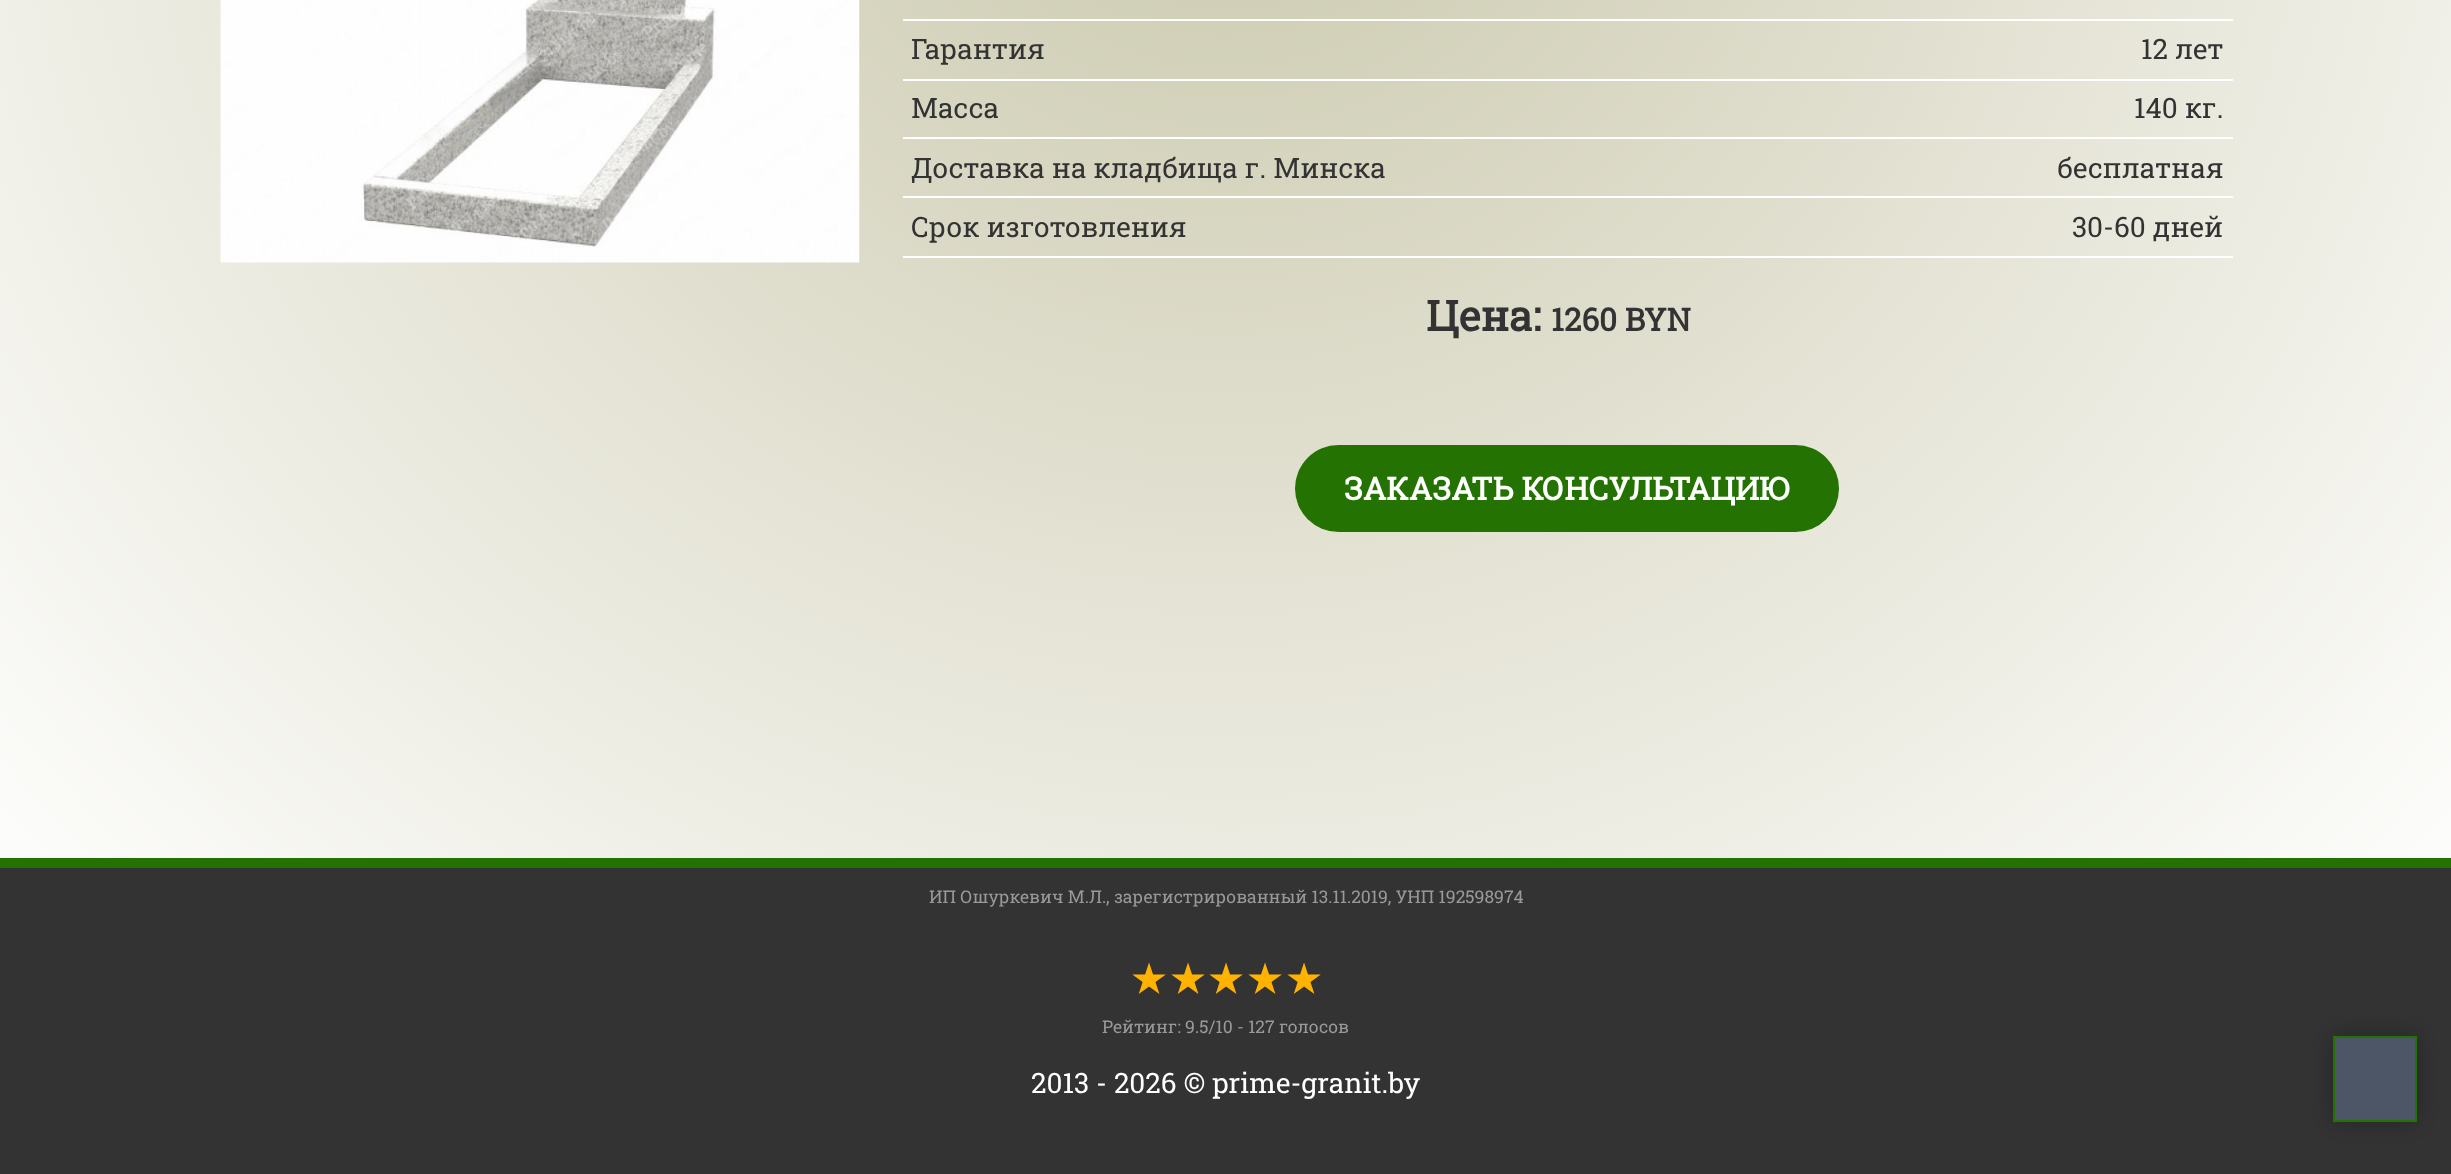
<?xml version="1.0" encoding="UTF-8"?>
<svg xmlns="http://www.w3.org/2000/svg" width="2451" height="1174">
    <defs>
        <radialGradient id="g1" gradientUnits="userSpaceOnUse" cx="0" cy="0" r="1" gradientTransform="matrix(1734 0 0 1675 1226 -222)"><stop offset="0" stop-color="#CAC8AC"/><stop offset="1" stop-color="#FFFFFF"/></radialGradient>
        <filter id="blur1" x="-50%" y="-200%" width="200%" height="500%"><feGaussianBlur stdDeviation="13"/></filter>
    </defs>
    <rect width="100%" height="100%" fill="#FFFFFF"/>
    <rect x="0" y="0" width="2451" height="858" fill="url(#g1)"/>
    <image x="220" y="0" width="640" height="263" href="img_01.png"/>
    <rect x="903" y="19" width="1330" height="2" fill="#FFFFFF"/>
    <rect x="903" y="79" width="1330" height="2" fill="#FFFFFF"/>
    <text x="911" y="59" font-family="Roboto Slab" font-size="28" fill="#333333">Гарантия</text>
    <text x="2141" y="59" font-family="Roboto Slab" font-size="28" fill="#333333">12 лет</text>
    <rect x="903" y="137" width="1330" height="2" fill="#FFFFFF"/>
    <text x="911" y="118" font-family="Roboto Slab" font-size="28" fill="#333333">Масса</text>
    <text x="2134" y="118" font-family="Roboto Slab" font-size="28" fill="#333333">140 кг.</text>
    <rect x="903" y="196" width="1330" height="2" fill="#FFFFFF"/>
    <text x="911" y="178" font-family="Roboto Slab" font-size="28" fill="#333333">Доставка на кладбища г. Минска</text>
    <text x="2057" y="178" font-family="Roboto Slab" font-size="28" fill="#333333">бесплатная</text>
    <rect x="903" y="256" width="1330" height="2" fill="#FFFFFF"/>
    <text x="911" y="237" font-family="Roboto Slab" font-size="28" fill="#333333">Срок изготовления</text>
    <text x="2072" y="237" font-family="Roboto Slab" font-size="28" fill="#333333">30-60 дней</text>
    <text x="1426" y="331" font-family="Roboto Slab" font-size="42" font-weight="700" fill="#333333">Цена:</text>
    <text x="1551" y="331" font-family="Roboto Slab" font-size="31.5" font-weight="700" fill="#333333">1260 BYN</text>
    <rect x="1295" y="445" width="544" height="87" rx="43.5" fill="#247202"/>
    <text x="1344" y="500" font-family="Roboto Slab" font-size="31.5" font-weight="700" fill="#FFFFFF">ЗАКАЗАТЬ КОНСУЛЬТАЦИЮ</text>
    <rect x="0" y="858" width="2451" height="10" fill="#247202"/>
    <rect x="0" y="868" width="2451" height="306" fill="#333333"/>
    <text x="929" y="903" font-family="Roboto Slab" font-size="17.5" fill="#999999">ИП Ошуркевич М.Л., зарегистрированный 13.11.2019, УНП 192598974</text>
    <text x="1131" y="993" font-family="DejaVu Sans" font-size="39" font-weight="700" fill="#FFB300">★</text>
    <text x="1170" y="993" font-family="DejaVu Sans" font-size="39" font-weight="700" fill="#FFB300">★</text>
    <text x="1208" y="993" font-family="DejaVu Sans" font-size="39" font-weight="700" fill="#FFB300">★</text>
    <text x="1247" y="993" font-family="DejaVu Sans" font-size="39" font-weight="700" fill="#FFB300">★</text>
    <text x="1286" y="993" font-family="DejaVu Sans" font-size="39" font-weight="700" fill="#FFB300">★</text>
    <text x="1102" y="1033" font-family="Roboto Slab" font-size="17.5" fill="#999999">Рейтинг: 9.5/10 - 127 голосов</text>
    <text x="1031" y="1093" font-family="Roboto Slab" font-size="28" fill="#FFFFFF">2013 - 2026 © prime-granit.by</text>
    <rect x="2333" y="1036" width="84" height="86" fill="#000000" fill-opacity="0.3" filter="url(#blur1)"/>
    <rect x="2334" y="1037" width="82" height="84" fill="#4C5667" stroke="#247202" stroke-width="2"/>
</svg>
